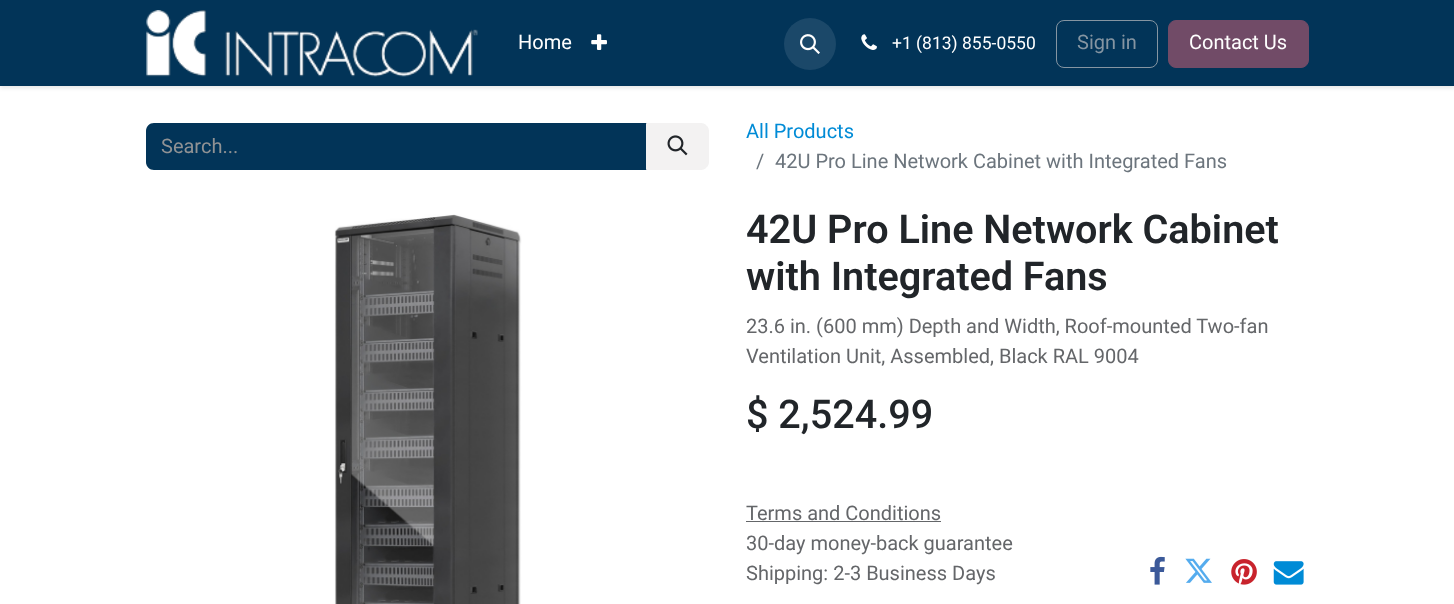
<?xml version="1.0" encoding="UTF-8"?>
<svg xmlns="http://www.w3.org/2000/svg" width="1454" height="604">
    <defs>
        <filter id="blur1" x="-50%" y="-200%" width="200%" height="500%"><feGaussianBlur stdDeviation="2"/></filter>
    </defs>
    <rect width="100%" height="100%" fill="#FFFFFF"/>
    <rect x="0" y="1" width="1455" height="87" fill="#000000" fill-opacity="0.1" filter="url(#blur1)"/>
    <rect x="0" y="0" width="1454" height="86" fill="#023458"/>
    <image x="146" y="10" width="332" height="67" href="img_01.png"/>
    <text x="518" y="49" font-family="Roboto" font-size="20" fill="#FFFFFF">Home</text>
    <image x="591" y="34" width="16" height="16" href="img_02.png"/>
    <circle cx="810" cy="44" r="26" fill="#1B4869"/>
    <image x="800" y="34" width="20" height="20" href="img_03.png"/>
    <image x="861" y="34" width="16" height="16" href="img_04.png"/>
    <text x="892" y="49" font-family="Roboto" font-size="17.5" fill="#FFFFFF">+1 (813) 855-0550</text>
    <rect x="1056.5" y="20.5" width="101" height="47" rx="7.5" fill="none" stroke="#8595A2"/>
    <text x="1077" y="49" font-family="Roboto" font-size="20" fill="#8595A2">Sign in</text>
    <rect x="1168.5" y="20.5" width="140" height="47" rx="7.5" fill="#714B67" stroke="#714B67"/>
    <text x="1189" y="49" font-family="Roboto" font-size="20" fill="#FFFFFF">Contact Us</text>
    <path d="M 154 123 H 648 V 170 H 154 C 149.5 170 146 166.5 146 162 V 131 C 146 126.5 149.5 123 154 123 Z" fill="#023458"/>
    <text x="161" y="153" font-family="Roboto" font-size="20" fill="#909294">Search...</text>
    <path d="M 646.5 123.5 H 701 C 705 123.5 708.5 127 708.5 131 V 162 C 708.5 166 705 169.5 701 169.5 H 646.5 Z" fill="#F3F2F2" stroke="#F3F2F2"/>
    <image x="667" y="135" width="21" height="21" href="img_05.png"/>
    <text x="746" y="138" font-family="Roboto" font-size="20" fill="#008BD6">All Products</text>
    <text x="756" y="168" font-family="Roboto" font-size="20" fill="#6C757D">/</text>
    <text x="775" y="168" font-family="Roboto" font-size="20" fill="#6C757D">42U Pro Line Network Cabinet with Integrated Fans</text>
    <image x="334" y="214" width="188" height="390" href="img_06.png"/>
    <text font-family="Roboto" font-size="39.6" font-weight="600" fill="#212529">
        <tspan x="746" y="243">42U Pro Line Network Cabinet</tspan>
        <tspan x="746" y="290">with Integrated Fans</tspan>
    </text>
    <text font-family="Roboto" font-size="20" fill="#646669">
        <tspan x="746" y="333">23.6 in. (600 mm) Depth and Width, Roof-mounted Two-fan</tspan>
        <tspan x="746" y="363">Ventilation Unit, Assembled, Black RAL 9004</tspan>
    </text>
    <text x="746" y="428" font-family="Roboto" font-size="39.6" font-weight="500" fill="#212529">$ 2,524.99</text>
    <text x="746" y="520" font-family="Roboto" font-size="20" fill="#646669">Terms and Conditions</text>
    <rect x="746" y="521" width="195" height="1" fill="#646669"/>
    <text font-family="Roboto" font-size="20" fill="#646669">
        <tspan x="746" y="550">30-day money-back guarantee</tspan>
        <tspan x="746" y="580">Shipping: 2-3 Business Days</tspan>
    </text>
    <image x="1150" y="556" width="15" height="29" href="img_07.png"/>
    <image x="1185" y="558" width="27" height="25" href="img_08.png"/>
    <image x="1231" y="559" width="26" height="26" href="img_09.png"/>
    <image x="1273" y="561" width="31" height="24" href="img_10.png"/>
</svg>
